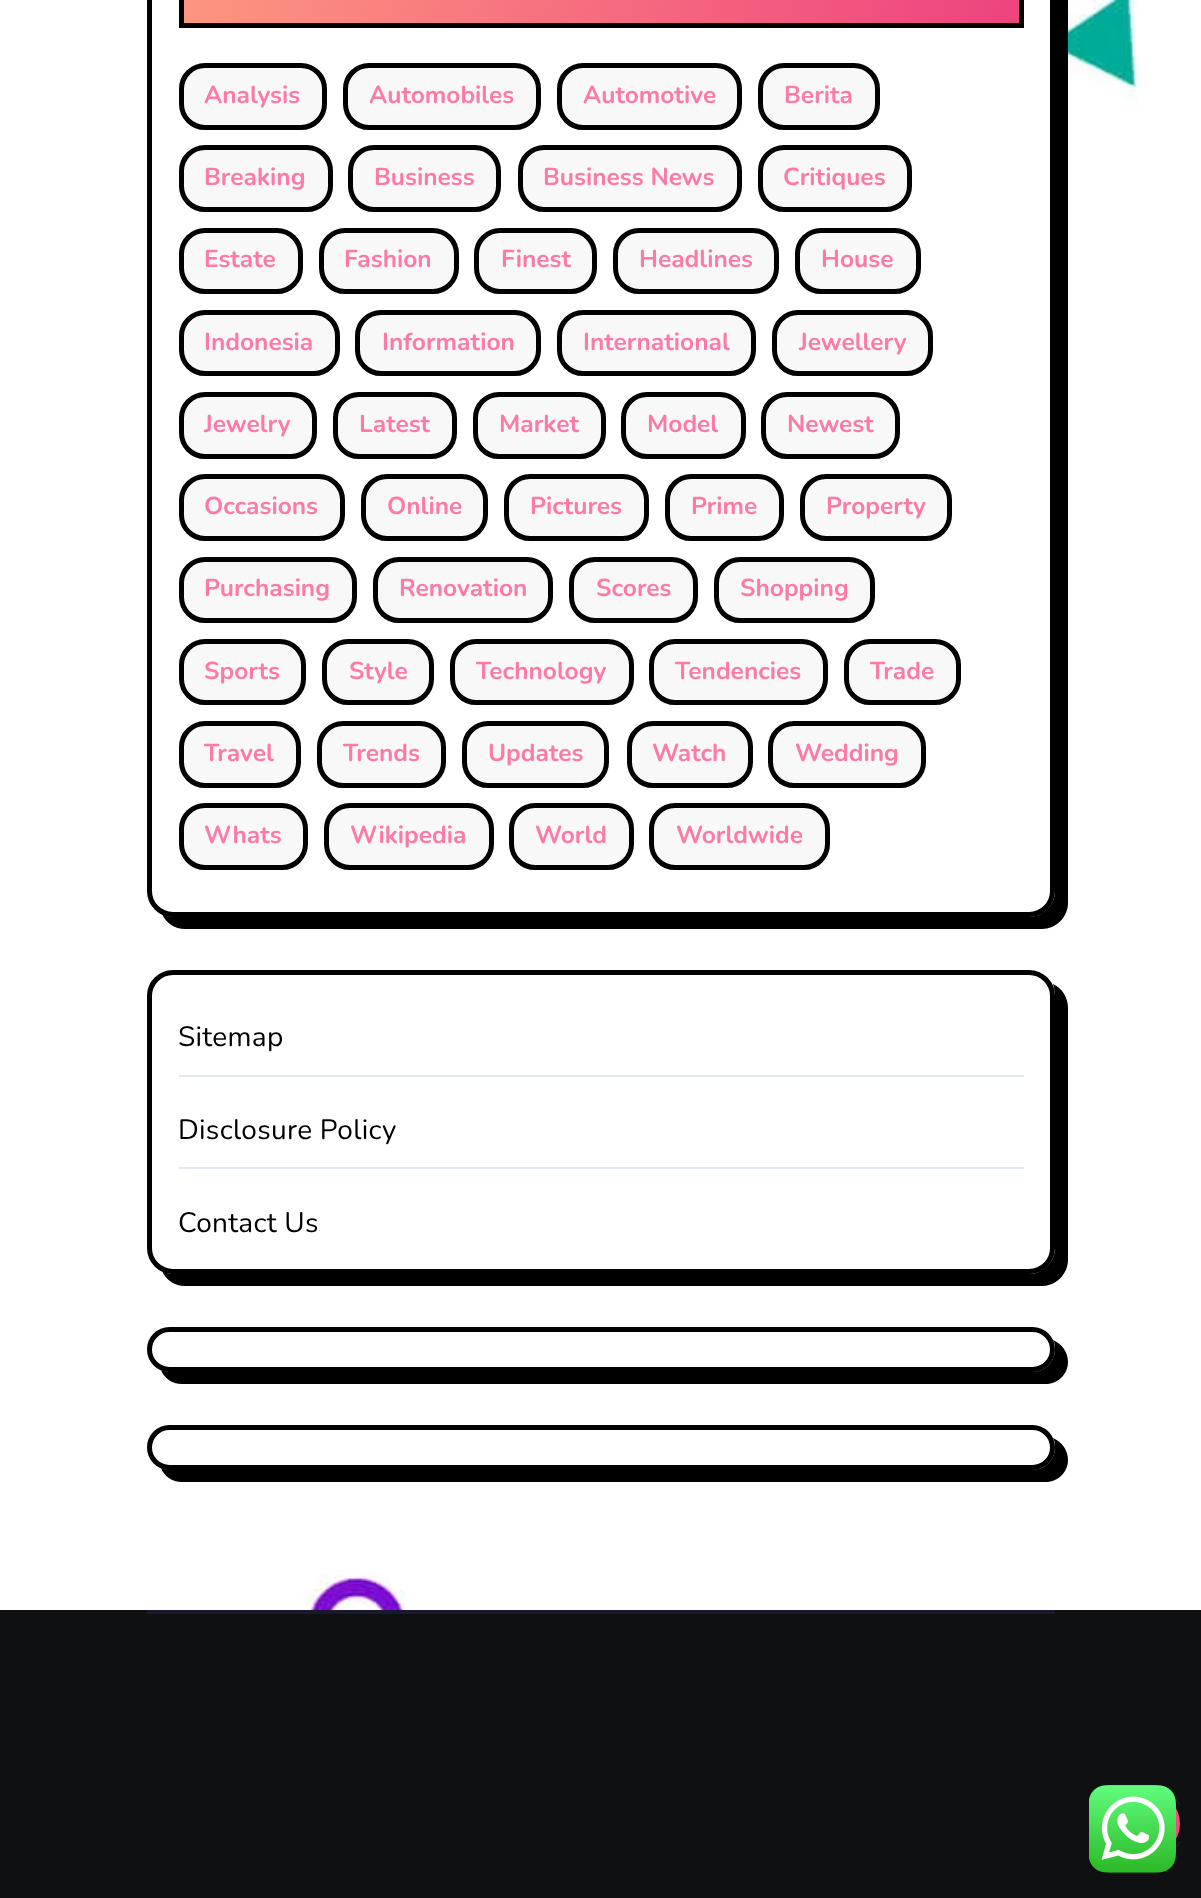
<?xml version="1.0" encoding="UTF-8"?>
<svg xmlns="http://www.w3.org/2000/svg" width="1201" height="1898">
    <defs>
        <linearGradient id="g1" gradientUnits="userSpaceOnUse" x1="191" y1="-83" x2="1012" y2="62"><stop offset="0" stop-color="#FD967F"/><stop offset="1" stop-color="#EE437F"/></linearGradient>
        <clipPath id="clip1"><rect x="1111" y="1787" width="74" height="73" rx="36.5"/></clipPath>
        <linearGradient id="g2" gradientUnits="userSpaceOnUse" x1="1112" y1="1817" x2="1184" y2="1830"><stop offset="0" stop-color="#FD967F"/><stop offset="1" stop-color="#EE437F"/></linearGradient>
    </defs>
    <rect width="100%" height="100%" fill="#FFFFFF"/>
    <image x="221" y="0" width="917" height="1610" href="img_01.png"/>
    <path d="M 162 914 C 166 923 175 929 185 929 H 1042 C 1056 929 1068 917 1068 903 V -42 C 1068 -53 1062 -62 1053 -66 C 1054 -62 1055 -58 1055 -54 V 891 C 1055 905 1043 917 1029 917 H 173 C 169 917 165 916 162 914 Z" fill="#000000"/>
    <rect x="149.5" y="-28.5" width="903" height="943" rx="23.5" fill="#FFFFFF" stroke="#000000" stroke-width="5"/>
    <rect x="184" y="0" width="835" height="23" fill="url(#g1)"/>
    <rect x="181.5" y="-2.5" width="840" height="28" fill="none" stroke="#000000" stroke-width="5"/>
    <rect x="181.5" y="65.5" width="143" height="62" rx="23.5" fill="#F8F8F8" stroke="#000000" stroke-width="5"/>
    <text x="204" y="103" font-family="Nunito" font-size="24.5" font-weight="700" fill="#FD79A8">Analysis</text>
    <rect x="345.5" y="65.5" width="193" height="62" rx="23.5" fill="#F8F8F8" stroke="#000000" stroke-width="5"/>
    <text x="369" y="103" font-family="Nunito" font-size="24.5" font-weight="700" fill="#FD79A8">Automobiles</text>
    <rect x="559.5" y="65.5" width="180" height="62" rx="23.5" fill="#F8F8F8" stroke="#000000" stroke-width="5"/>
    <text x="583" y="103" font-family="Nunito" font-size="24.5" font-weight="700" fill="#FD79A8">Automotive</text>
    <rect x="760.5" y="65.5" width="117" height="62" rx="23.5" fill="#F8F8F8" stroke="#000000" stroke-width="5"/>
    <text x="784" y="103" font-family="Nunito" font-size="24.5" font-weight="700" fill="#FD79A8">Berita</text>
    <rect x="181.5" y="147.5" width="149" height="62" rx="23.5" fill="#F8F8F8" stroke="#000000" stroke-width="5"/>
    <text x="204" y="185" font-family="Nunito" font-size="24.5" font-weight="700" fill="#FD79A8">Breaking</text>
    <rect x="350.5" y="147.5" width="148" height="62" rx="23.5" fill="#F8F8F8" stroke="#000000" stroke-width="5"/>
    <text x="374" y="185" font-family="Nunito" font-size="24.5" font-weight="700" fill="#FD79A8">Business</text>
    <rect x="520.5" y="147.5" width="219" height="62" rx="23.5" fill="#F8F8F8" stroke="#000000" stroke-width="5"/>
    <text x="543" y="185" font-family="Nunito" font-size="24.5" font-weight="700" fill="#FD79A8">Business News</text>
    <rect x="760.5" y="147.5" width="149" height="62" rx="23.5" fill="#F8F8F8" stroke="#000000" stroke-width="5"/>
    <text x="783" y="185" font-family="Nunito" font-size="24.5" font-weight="700" fill="#FD79A8">Critiques</text>
    <rect x="181.5" y="230.5" width="119" height="61" rx="23.5" fill="#F8F8F8" stroke="#000000" stroke-width="5"/>
    <text x="204" y="267" font-family="Nunito" font-size="24.5" font-weight="700" fill="#FD79A8">Estate</text>
    <rect x="321.5" y="230.5" width="135" height="61" rx="23.5" fill="#F8F8F8" stroke="#000000" stroke-width="5"/>
    <text x="344" y="267" font-family="Nunito" font-size="24.5" font-weight="700" fill="#FD79A8">Fashion</text>
    <rect x="476.5" y="230.5" width="118" height="61" rx="23.5" fill="#F8F8F8" stroke="#000000" stroke-width="5"/>
    <text x="501" y="267" font-family="Nunito" font-size="24.5" font-weight="700" fill="#FD79A8">Finest</text>
    <rect x="615.5" y="230.5" width="161" height="61" rx="23.5" fill="#F8F8F8" stroke="#000000" stroke-width="5"/>
    <text x="639" y="267" font-family="Nunito" font-size="24.5" font-weight="700" fill="#FD79A8">Headlines</text>
    <rect x="797.5" y="230.5" width="121" height="61" rx="23.5" fill="#F8F8F8" stroke="#000000" stroke-width="5"/>
    <text x="821" y="267" font-family="Nunito" font-size="24.5" font-weight="700" fill="#FD79A8">House</text>
    <rect x="181.5" y="312.5" width="156" height="61" rx="23.5" fill="#F8F8F8" stroke="#000000" stroke-width="5"/>
    <text x="204" y="350" font-family="Nunito" font-size="24.5" font-weight="700" fill="#FD79A8">Indonesia</text>
    <rect x="357.5" y="312.5" width="181" height="61" rx="23.5" fill="#F8F8F8" stroke="#000000" stroke-width="5"/>
    <text x="382" y="350" font-family="Nunito" font-size="24.5" font-weight="700" fill="#FD79A8">Information</text>
    <rect x="559.5" y="312.5" width="194" height="61" rx="23.5" fill="#F8F8F8" stroke="#000000" stroke-width="5"/>
    <text x="583" y="350" font-family="Nunito" font-size="24.5" font-weight="700" fill="#FD79A8">International</text>
    <rect x="774.5" y="312.5" width="156" height="61" rx="23.5" fill="#F8F8F8" stroke="#000000" stroke-width="5"/>
    <text x="799" y="350" font-family="Nunito" font-size="24.5" font-weight="700" fill="#FD79A8">Jewellery</text>
    <rect x="181.5" y="394.5" width="133" height="62" rx="23.5" fill="#F8F8F8" stroke="#000000" stroke-width="5"/>
    <text x="204" y="432" font-family="Nunito" font-size="24.5" font-weight="700" fill="#FD79A8">Jewelry</text>
    <rect x="335.5" y="394.5" width="119" height="62" rx="23.5" fill="#F8F8F8" stroke="#000000" stroke-width="5"/>
    <text x="359" y="432" font-family="Nunito" font-size="24.5" font-weight="700" fill="#FD79A8">Latest</text>
    <rect x="475.5" y="394.5" width="128" height="62" rx="23.5" fill="#F8F8F8" stroke="#000000" stroke-width="5"/>
    <text x="499" y="432" font-family="Nunito" font-size="24.5" font-weight="700" fill="#FD79A8">Market</text>
    <rect x="623.5" y="394.5" width="120" height="62" rx="23.5" fill="#F8F8F8" stroke="#000000" stroke-width="5"/>
    <text x="647" y="432" font-family="Nunito" font-size="24.5" font-weight="700" fill="#FD79A8">Model</text>
    <rect x="763.5" y="394.5" width="134" height="62" rx="23.5" fill="#F8F8F8" stroke="#000000" stroke-width="5"/>
    <text x="787" y="432" font-family="Nunito" font-size="24.5" font-weight="700" fill="#FD79A8">Newest</text>
    <rect x="181.5" y="476.5" width="161" height="62" rx="23.5" fill="#F8F8F8" stroke="#000000" stroke-width="5"/>
    <text x="204" y="514" font-family="Nunito" font-size="24.5" font-weight="700" fill="#FD79A8">Occasions</text>
    <rect x="363.5" y="476.5" width="122" height="62" rx="23.5" fill="#F8F8F8" stroke="#000000" stroke-width="5"/>
    <text x="387" y="514" font-family="Nunito" font-size="24.5" font-weight="700" fill="#FD79A8">Online</text>
    <rect x="506.5" y="476.5" width="140" height="62" rx="23.5" fill="#F8F8F8" stroke="#000000" stroke-width="5"/>
    <text x="530" y="514" font-family="Nunito" font-size="24.5" font-weight="700" fill="#FD79A8">Pictures</text>
    <rect x="667.5" y="476.5" width="114" height="62" rx="23.5" fill="#F8F8F8" stroke="#000000" stroke-width="5"/>
    <text x="691" y="514" font-family="Nunito" font-size="24.5" font-weight="700" fill="#FD79A8">Prime</text>
    <rect x="802.5" y="476.5" width="147" height="62" rx="23.5" fill="#F8F8F8" stroke="#000000" stroke-width="5"/>
    <text x="826" y="514" font-family="Nunito" font-size="24.5" font-weight="700" fill="#FD79A8">Property</text>
    <rect x="181.5" y="559.5" width="173" height="61" rx="23.5" fill="#F8F8F8" stroke="#000000" stroke-width="5"/>
    <text x="204" y="596" font-family="Nunito" font-size="24.5" font-weight="700" fill="#FD79A8">Purchasing</text>
    <rect x="375.5" y="559.5" width="175" height="61" rx="23.5" fill="#F8F8F8" stroke="#000000" stroke-width="5"/>
    <text x="399" y="596" font-family="Nunito" font-size="24.5" font-weight="700" fill="#FD79A8">Renovation</text>
    <rect x="571.5" y="559.5" width="124" height="61" rx="23.5" fill="#F8F8F8" stroke="#000000" stroke-width="5"/>
    <text x="596" y="596" font-family="Nunito" font-size="24.5" font-weight="700" fill="#FD79A8">Scores</text>
    <rect x="716.5" y="559.5" width="156" height="61" rx="23.5" fill="#F8F8F8" stroke="#000000" stroke-width="5"/>
    <text x="740" y="596" font-family="Nunito" font-size="24.5" font-weight="700" fill="#FD79A8">Shopping</text>
    <rect x="181.5" y="641.5" width="122" height="61" rx="23.5" fill="#F8F8F8" stroke="#000000" stroke-width="5"/>
    <text x="204" y="679" font-family="Nunito" font-size="24.5" font-weight="700" fill="#FD79A8">Sports</text>
    <rect x="324.5" y="641.5" width="107" height="61" rx="23.5" fill="#F8F8F8" stroke="#000000" stroke-width="5"/>
    <text x="349" y="679" font-family="Nunito" font-size="24.5" font-weight="700" fill="#FD79A8">Style</text>
    <rect x="452.5" y="641.5" width="179" height="61" rx="23.5" fill="#F8F8F8" stroke="#000000" stroke-width="5"/>
    <text x="476" y="679" font-family="Nunito" font-size="24.5" font-weight="700" fill="#FD79A8">Technology</text>
    <rect x="651.5" y="641.5" width="174" height="61" rx="23.5" fill="#F8F8F8" stroke="#000000" stroke-width="5"/>
    <text x="675" y="679" font-family="Nunito" font-size="24.5" font-weight="700" fill="#FD79A8">Tendencies</text>
    <rect x="846.5" y="641.5" width="112" height="61" rx="23.5" fill="#F8F8F8" stroke="#000000" stroke-width="5"/>
    <text x="870" y="679" font-family="Nunito" font-size="24.5" font-weight="700" fill="#FD79A8">Trade</text>
    <rect x="181.5" y="723.5" width="117" height="62" rx="23.5" fill="#F8F8F8" stroke="#000000" stroke-width="5"/>
    <text x="204" y="761" font-family="Nunito" font-size="24.5" font-weight="700" fill="#FD79A8">Travel</text>
    <rect x="319.5" y="723.5" width="124" height="62" rx="23.5" fill="#F8F8F8" stroke="#000000" stroke-width="5"/>
    <text x="343" y="761" font-family="Nunito" font-size="24.5" font-weight="700" fill="#FD79A8">Trends</text>
    <rect x="464.5" y="723.5" width="142" height="62" rx="23.5" fill="#F8F8F8" stroke="#000000" stroke-width="5"/>
    <text x="488" y="761" font-family="Nunito" font-size="24.5" font-weight="700" fill="#FD79A8">Updates</text>
    <rect x="629.5" y="723.5" width="121" height="62" rx="23.5" fill="#F8F8F8" stroke="#000000" stroke-width="5"/>
    <text x="652" y="761" font-family="Nunito" font-size="24.5" font-weight="700" fill="#FD79A8">Watch</text>
    <rect x="770.5" y="723.5" width="153" height="62" rx="23.5" fill="#F8F8F8" stroke="#000000" stroke-width="5"/>
    <text x="795" y="761" font-family="Nunito" font-size="24.5" font-weight="700" fill="#FD79A8">Wedding</text>
    <rect x="181.5" y="805.5" width="124" height="62" rx="23.5" fill="#F8F8F8" stroke="#000000" stroke-width="5"/>
    <text x="204" y="843" font-family="Nunito" font-size="24.5" font-weight="700" fill="#FD79A8">Whats</text>
    <rect x="326.5" y="805.5" width="165" height="62" rx="23.5" fill="#F8F8F8" stroke="#000000" stroke-width="5"/>
    <text x="350" y="843" font-family="Nunito" font-size="24.5" font-weight="700" fill="#FD79A8">Wikipedia</text>
    <rect x="511.5" y="805.5" width="120" height="62" rx="23.5" fill="#F8F8F8" stroke="#000000" stroke-width="5"/>
    <text x="535" y="843" font-family="Nunito" font-size="24.5" font-weight="700" fill="#FD79A8">World</text>
    <rect x="651.5" y="805.5" width="176" height="62" rx="23.5" fill="#F8F8F8" stroke="#000000" stroke-width="5"/>
    <text x="676" y="843" font-family="Nunito" font-size="24.5" font-weight="700" fill="#FD79A8">Worldwide</text>
    <path d="M 162 1271 C 166 1280 175 1286 185 1286 H 1042 C 1056 1286 1068 1274 1068 1260 V 1008 C 1068 997 1062 988 1053 984 C 1054 988 1055 992 1055 996 V 1248 C 1055 1262 1043 1274 1029 1274 H 173 C 169 1274 165 1273 162 1271 Z" fill="#000000"/>
    <rect x="149.5" y="972.5" width="903" height="299" rx="23.5" fill="#FFFFFF" stroke="#000000" stroke-width="5"/>
    <rect x="179" y="1075" width="845" height="2" fill="#E2E8F0"/>
    <text x="178" y="1046" font-family="Nunito" font-size="28" letter-spacing="0.3" fill="#000000">Sitemap</text>
    <rect x="179" y="1167" width="845" height="2" fill="#E2E8F0"/>
    <text x="178" y="1139" font-family="Nunito" font-size="28" letter-spacing="0.3" fill="#000000">Disclosure Policy</text>
    <text x="178" y="1232" font-family="Nunito" font-size="28" letter-spacing="0.3" fill="#000000">Contact Us</text>
    <path d="M 161 1370 C 164 1378 172 1384 182 1384 H 1046 C 1058 1384 1068 1374 1068 1362 C 1068 1352 1062 1344 1053 1340 C 1055 1343 1055 1346 1055 1349 C 1055 1362 1045 1372 1032 1372 H 170 C 167 1372 163 1371 161 1370 Z" fill="#000000"/>
    <rect x="149.5" y="1329.5" width="903" height="40" rx="20" fill="#FFFFFF" stroke="#000000" stroke-width="5"/>
    <path d="M 161 1468 C 164 1476 172 1482 182 1482 H 1046 C 1058 1482 1068 1472 1068 1460 C 1068 1450 1062 1442 1053 1438 C 1055 1441 1055 1444 1055 1447 C 1055 1460 1045 1470 1032 1470 H 170 C 167 1470 163 1469 161 1468 Z" fill="#000000"/>
    <rect x="149.5" y="1427.5" width="903" height="40" rx="20" fill="#FFFFFF" stroke="#000000" stroke-width="5"/>
    <rect x="0" y="1610" width="1201" height="288" fill="#0F1012"/>
    <rect x="147" y="1610" width="908" height="4" fill="#1A182E"/>
    <g clip-path="url(#clip1)">
        <rect x="1174" y="1797" width="6" height="51" fill="url(#g2)"/>
    </g>
    <rect x="1113.5" y="1789.5" width="69" height="68" rx="34" fill="none" stroke="#0F1012" stroke-width="5"/>
    <image x="1089" y="1785" width="87" height="88" href="img_02.png"/>
</svg>
